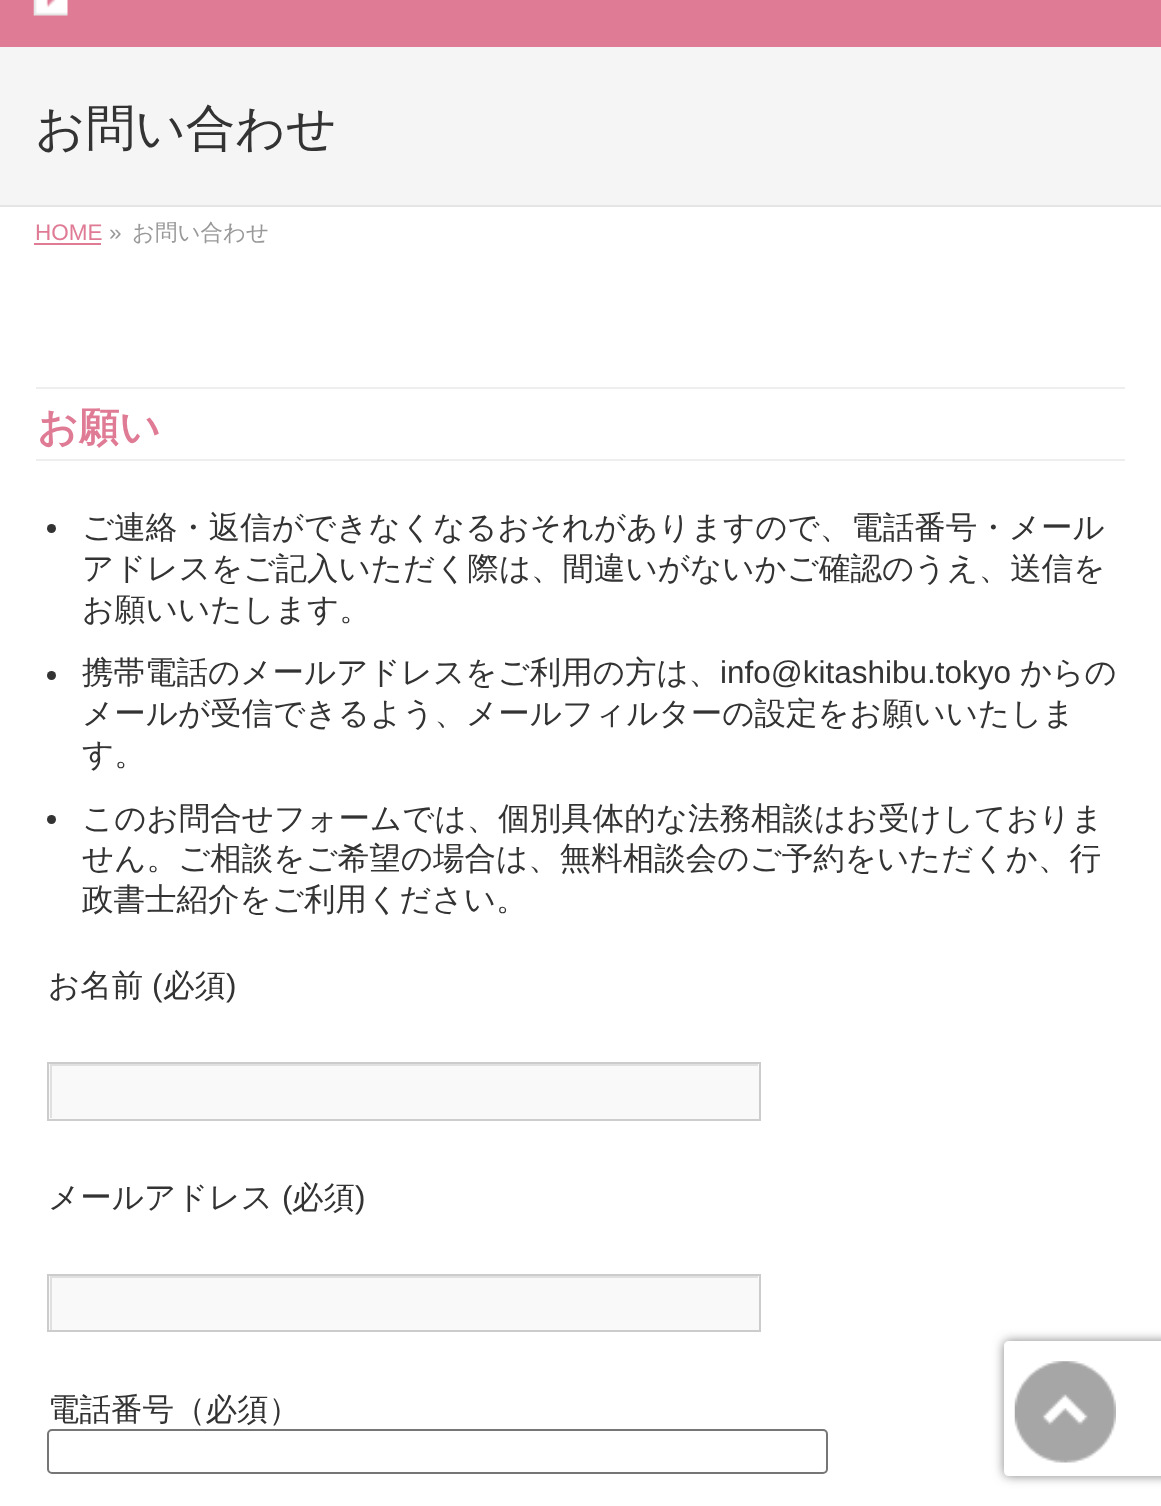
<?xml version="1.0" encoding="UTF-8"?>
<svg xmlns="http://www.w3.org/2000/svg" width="1161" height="1506">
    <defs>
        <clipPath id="clip1"><rect x="50" y="1064" width="708" height="54"/></clipPath>
        <clipPath id="clip2"><rect x="50" y="1276" width="708" height="54"/></clipPath>
        <clipPath id="clip3"><path d="M 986 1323 H 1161 V 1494 H 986 Z M 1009 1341 H 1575 C 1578 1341 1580 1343 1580 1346 V 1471 C 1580 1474 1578 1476 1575 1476 H 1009 C 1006 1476 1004 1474 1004 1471 V 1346 C 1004 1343 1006 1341 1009 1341 Z" clip-rule="evenodd"/></clipPath>
        <filter id="blur1" x="-50%" y="-200%" width="200%" height="500%"><feGaussianBlur stdDeviation="5.5"/></filter>
    </defs>
    <rect width="100%" height="100%" fill="#FFFFFF"/>
    <rect x="0" y="0" width="1161" height="47" fill="#E07B96"/>
    <image x="33" y="0" width="35" height="16" href="img_01.png"/>
    <rect x="0" y="47" width="1161" height="158" fill="#F5F5F5"/>
    <rect x="0" y="205" width="1161" height="2" fill="#E5E5E5"/>
    <text x="35" y="145" font-family="WenQuanYi Zen Hei" font-size="49.5" font-weight="500" fill="#333333">お問い合わせ</text>
    <text x="35" y="240" font-family="Liberation Sans" font-size="22.5" fill="#E07B96">HOME</text>
    <rect x="34" y="243" width="67" height="2" fill="#E07B96"/>
    <text x="109" y="240" font-family="Liberation Sans" font-size="22.5" fill="#999999">»</text>
    <text x="132" y="240" font-family="WenQuanYi Zen Hei" font-size="22.5" font-weight="500" fill="#999999">お問い合わせ</text>
    <rect x="36" y="387" width="1089" height="2" fill="#EEEEEE"/>
    <rect x="36" y="459" width="1089" height="2" fill="#EEEEEE"/>
    <text x="37" y="441" font-family="WenQuanYi Zen Hei" font-size="40.5" font-weight="700" fill="#E07B96">お願い</text>
    <circle cx="51.5" cy="528.5" r="4.5" fill="#333333"/>
    <text font-family="WenQuanYi Zen Hei" font-size="31.5" font-weight="500" fill="#333333">
        <tspan x="82" y="538">ご連絡・返信ができなくなるおそれがありますので、電話番号・メール</tspan>
        <tspan x="82" y="579">アドレスをご記入いただく際は、間違いがないかご確認のうえ、送信を</tspan>
        <tspan x="82" y="620">お願いいたします。</tspan>
    </text>
    <circle cx="51.5" cy="675.5" r="4.5" fill="#333333"/>
    <text x="82" y="683" font-family="WenQuanYi Zen Hei" font-size="31.5" font-weight="500" fill="#333333">携帯電話のメールアドレスをご利用の方は、</text>
    <text x="720" y="683" font-family="Liberation Sans" font-size="31.5" fill="#333333">info@kitashibu.tokyo</text>
    <text x="1020" y="683" font-family="WenQuanYi Zen Hei" font-size="31.5" font-weight="500" fill="#333333">からの</text>
    <text font-family="WenQuanYi Zen Hei" font-size="31.5" font-weight="500" fill="#333333">
        <tspan x="82" y="724">メールが受信できるよう、メールフィルターの設定をお願いいたしま</tspan>
        <tspan x="82" y="765">す。</tspan>
    </text>
    <circle cx="51.5" cy="819.5" r="4.5" fill="#333333"/>
    <text font-family="WenQuanYi Zen Hei" font-size="31.5" font-weight="500" fill="#333333">
        <tspan x="82" y="829">このお問合せフォームでは、個別具体的な法務相談はお受けしておりま</tspan>
        <tspan x="82" y="869">せん。ご相談をご希望の場合は、無料相談会のご予約をいただくか、行</tspan>
        <tspan x="82" y="910">政書士紹介をご利用ください。</tspan>
    </text>
    <text x="48" y="996" font-family="WenQuanYi Zen Hei" font-size="31.5" font-weight="500" fill="#333333">お名前</text>
    <text x="152" y="996" font-family="Liberation Sans" font-size="31.5" fill="#333333">(</text>
    <text x="163" y="996" font-family="WenQuanYi Zen Hei" font-size="31.5" font-weight="500" fill="#333333">必須</text>
    <text x="226" y="996" font-family="Liberation Sans" font-size="31.5" fill="#333333">)</text>
    <rect x="49" y="1064" width="710" height="55" fill="#F9F9F9"/>
    <g clip-path="url(#clip1)">
        <path d="M -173 842 H 981 V 1341 H -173 Z M 52 1066 H 760 V 1120 H 52 Z" fill="#E0E0E0" fill-rule="evenodd"/>
    </g>
    <rect x="48" y="1063" width="712" height="57" fill="none" stroke="#CCCCCC" stroke-width="2"/>
    <text x="48" y="1208" font-family="WenQuanYi Zen Hei" font-size="31.5" font-weight="500" fill="#333333">メールアドレス</text>
    <text x="282" y="1208" font-family="Liberation Sans" font-size="31.5" fill="#333333">(</text>
    <text x="292" y="1208" font-family="WenQuanYi Zen Hei" font-size="31.5" font-weight="500" fill="#333333">必須</text>
    <text x="355" y="1208" font-family="Liberation Sans" font-size="31.5" fill="#333333">)</text>
    <rect x="49" y="1276" width="710" height="54" fill="#F9F9F9"/>
    <g clip-path="url(#clip2)">
        <path d="M -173 1053 H 981 V 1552 H -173 Z M 52 1278 H 760 V 1332 H 52 Z" fill="#E0E0E0" fill-rule="evenodd"/>
    </g>
    <rect x="48" y="1275" width="712" height="56" fill="none" stroke="#CCCCCC" stroke-width="2"/>
    <text x="48" y="1420" font-family="WenQuanYi Zen Hei" font-size="31.5" font-weight="500" fill="#333333">電話番号（必須）</text>
    <rect x="48" y="1430" width="779" height="43" rx="4" fill="none" stroke="#767676" stroke-width="2"/>
    <g clip-path="url(#clip3)">
        <rect x="1004" y="1341" width="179" height="135" rx="5" fill="#808080" filter="url(#blur1)"/>
    </g>
    <image x="1014" y="1361" width="102" height="102" href="img_02.png"/>
</svg>
